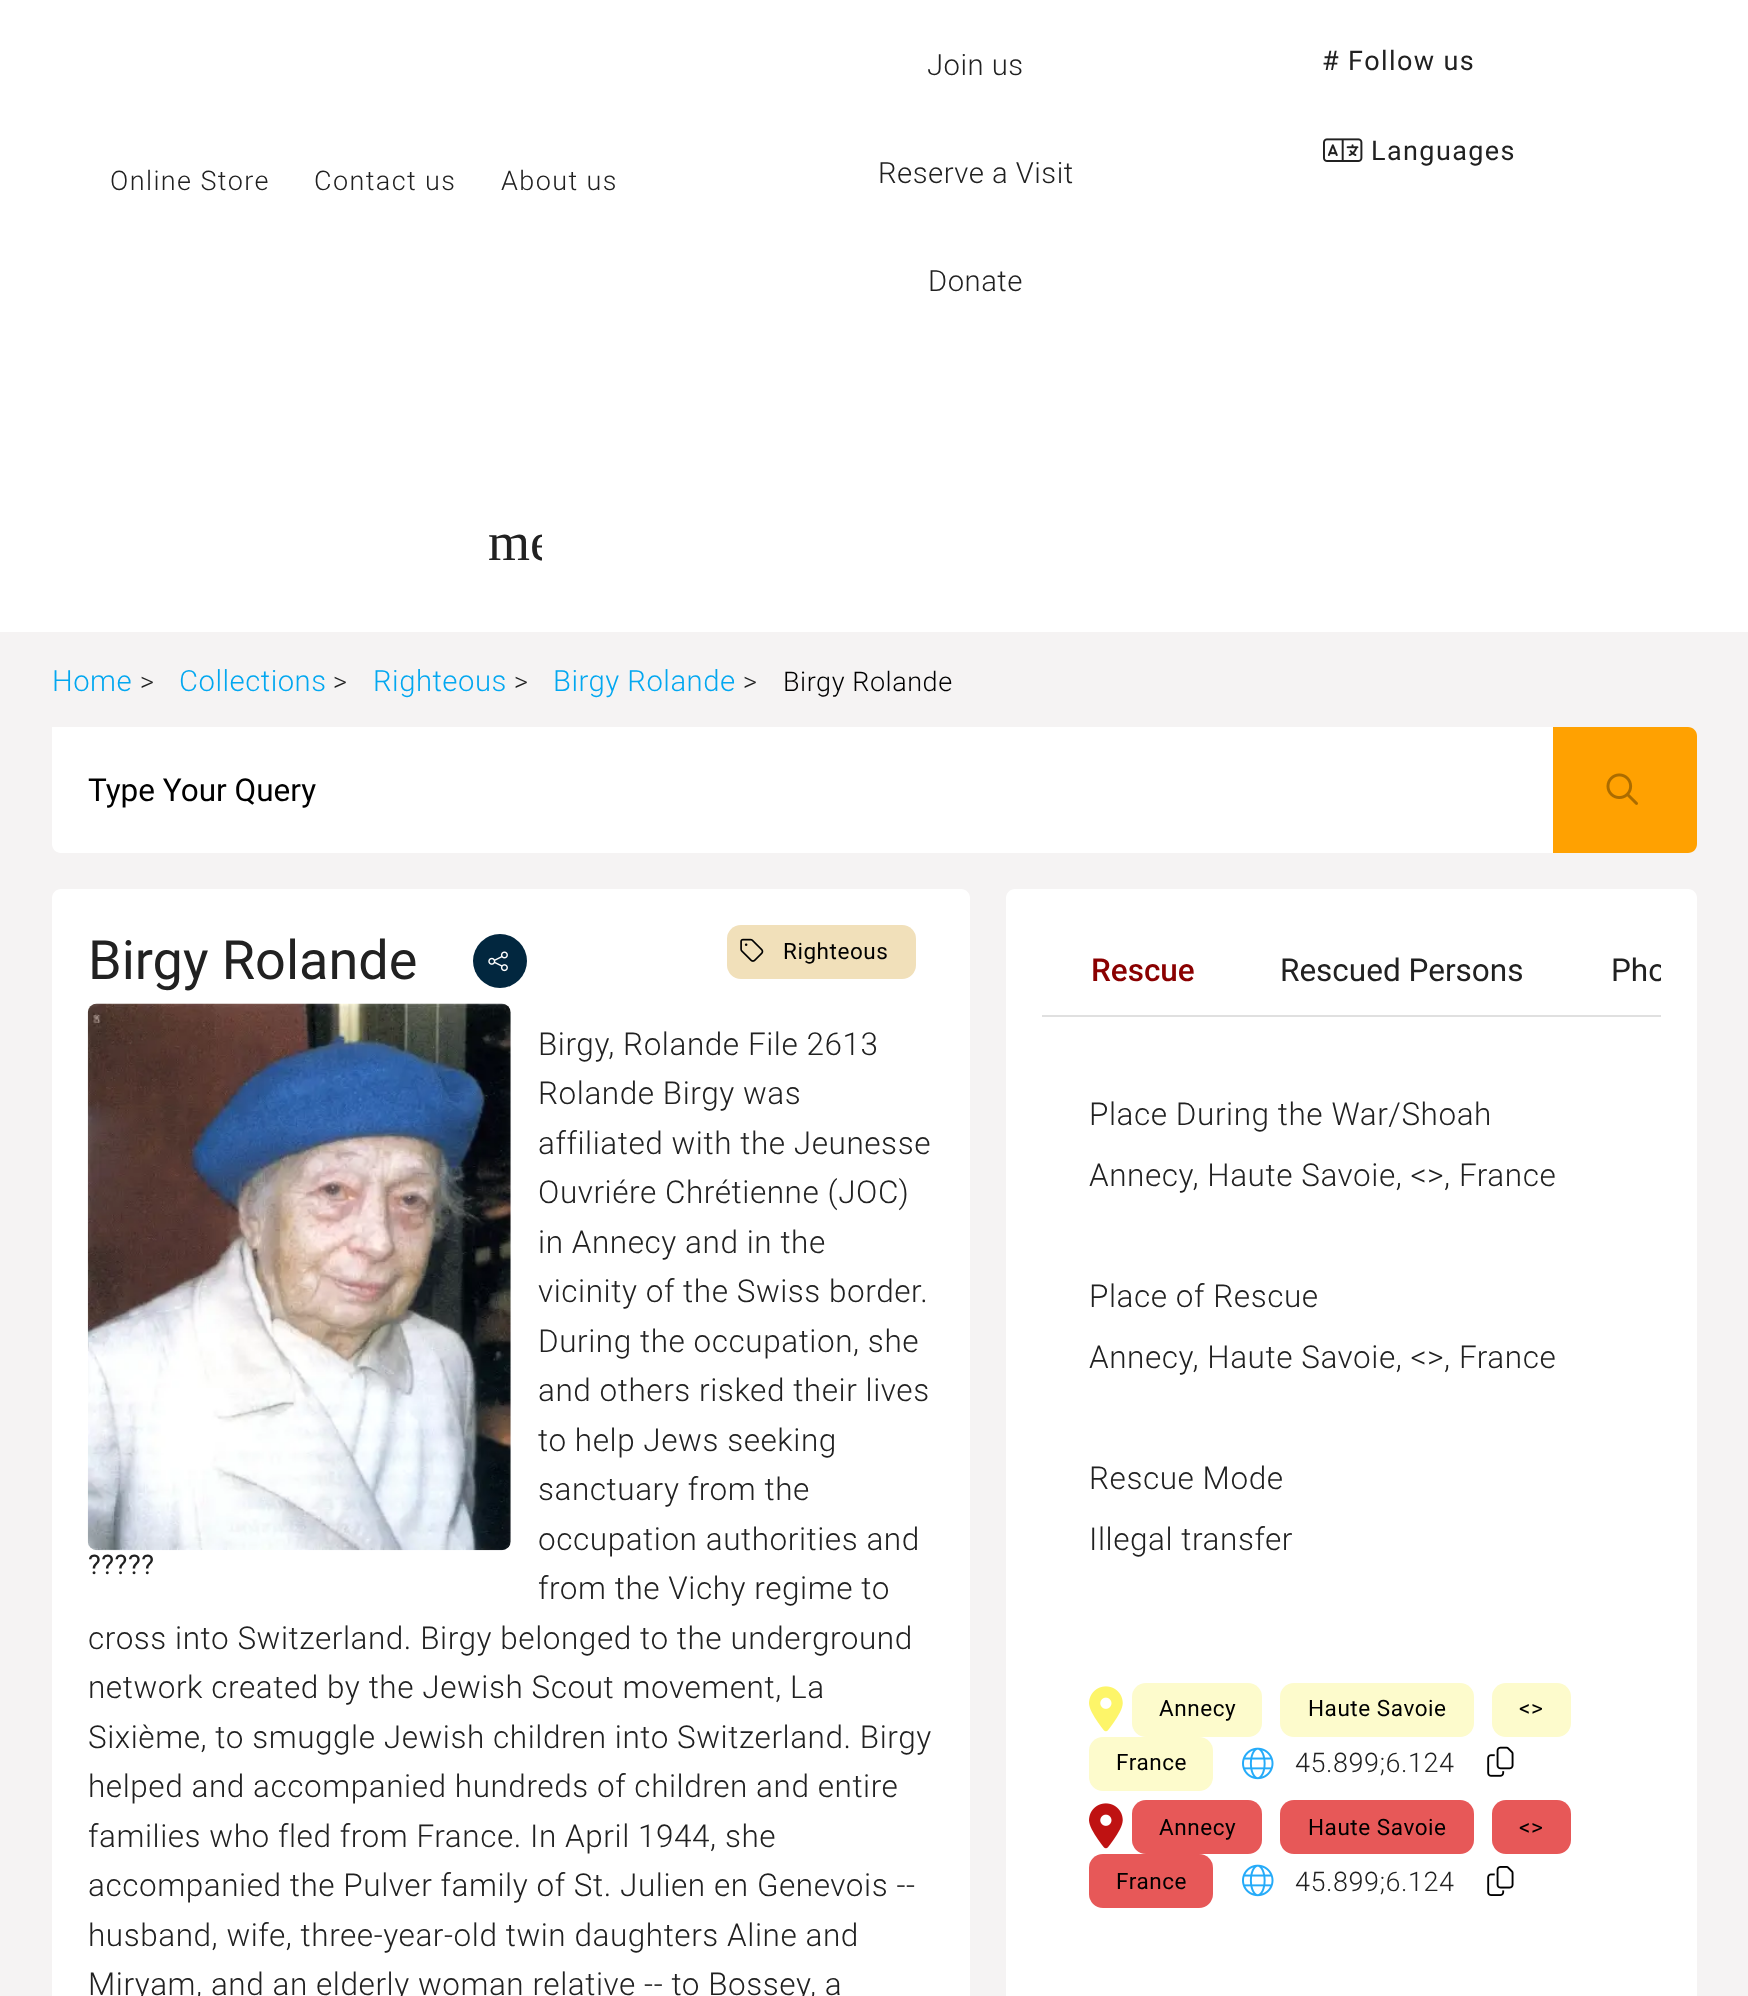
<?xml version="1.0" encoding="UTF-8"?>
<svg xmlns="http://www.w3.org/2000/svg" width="1748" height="1996">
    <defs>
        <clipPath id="clip1"><rect x="488" y="515" width="54" height="54"/></clipPath>
        <clipPath id="clip2"><rect x="1042" y="925" width="619" height="90"/></clipPath>
    </defs>
    <rect width="100%" height="100%" fill="#F5F3F3"/>
    <rect x="0" y="0" width="1748" height="632" fill="#FFFFFF"/>
    <text x="110" y="190" font-family="Roboto" font-size="27" font-weight="300" letter-spacing="1.4" fill="#212121">Online Store</text>
    <text x="314" y="190" font-family="Roboto" font-size="27" font-weight="300" letter-spacing="1.4" fill="#212121">Contact us</text>
    <text x="501" y="190" font-family="Roboto" font-size="27" font-weight="300" letter-spacing="1.4" fill="#212121">About us</text>
    <text x="927" y="75" font-family="Roboto" font-size="29.25" font-weight="300" letter-spacing="0.5" fill="#212121">Join us</text>
    <text x="878" y="183" font-family="Roboto" font-size="29.25" font-weight="300" letter-spacing="0.5" fill="#212121">Reserve a Visit</text>
    <text x="928" y="291" font-family="Roboto" font-size="29.25" font-weight="300" letter-spacing="0.5" fill="#212121">Donate</text>
    <text x="1322" y="70" font-family="Roboto" font-size="27" letter-spacing="1.4" fill="#212121"># Follow us</text>
    <image x="1323" y="138" width="40" height="24" href="img_01.png"/>
    <text x="1371" y="160" font-family="Roboto" font-size="27" letter-spacing="1.4" fill="#212121">Languages</text>
    <g clip-path="url(#clip1)">
        <text x="488" y="560" font-family="Liberation Serif" font-size="54" fill="#212121">me</text>
    </g>
    <text x="52" y="691" font-family="Roboto" font-size="29.25" font-weight="300" letter-spacing="0.5" fill="#02A7F0">Home</text>
    <text x="140" y="691" font-family="'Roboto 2'" font-size="27" font-weight="300" letter-spacing="0.55" fill="#212121">&gt;</text>
    <text x="179" y="691" font-family="Roboto" font-size="29.25" font-weight="300" letter-spacing="0.5" fill="#02A7F0">Collections</text>
    <text x="333" y="691" font-family="'Roboto 2'" font-size="27" font-weight="300" letter-spacing="0.55" fill="#212121">&gt;</text>
    <text x="373" y="691" font-family="Roboto" font-size="29.25" font-weight="300" letter-spacing="0.5" fill="#02A7F0">Righteous</text>
    <text x="514" y="691" font-family="'Roboto 2'" font-size="27" font-weight="300" letter-spacing="0.55" fill="#212121">&gt;</text>
    <text x="553" y="691" font-family="Roboto" font-size="29.25" font-weight="300" letter-spacing="0.5" fill="#02A7F0">Birgy Rolande</text>
    <text x="743" y="691" font-family="'Roboto 2'" font-size="27" font-weight="300" letter-spacing="0.55" fill="#212121">&gt;</text>
    <text x="783" y="691" font-family="'Roboto 2'" font-size="27" font-weight="300" letter-spacing="0.55" fill="#000000">Birgy Rolande</text>
    <path d="M 52 727 H 1553 V 853 H 61 C 56 853 52 849 52 844 Z" fill="#FFFFFF"/>
    <text x="88" y="801" font-family="Roboto" font-size="31.5" fill="#000000">Type Your Query</text>
    <path d="M 1553 727 H 1688 C 1693 727 1697 731 1697 736 V 844 C 1697 849 1693 853 1688 853 H 1553 Z" fill="#FFA101"/>
    <image x="1606" y="773" width="32" height="32" href="img_02.png"/>
    <path d="M 61 889 H 961 C 966 889 970 893 970 898 V 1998 H 52 V 898 C 52 893 56 889 61 889 Z" fill="#FFFFFF"/>
    <text x="88" y="979" font-family="Roboto" font-size="54" fill="#212121">Birgy Rolande</text>
    <circle cx="500" cy="961" r="27" fill="#02273F"/>
    <image x="488" y="951" width="20" height="21" href="img_03.png"/>
    <rect x="727" y="925" width="189" height="54" rx="14" fill="#F1E0BA"/>
    <image x="740" y="938" width="24" height="24" href="img_04.png"/>
    <text x="783" y="959" font-family="Roboto" font-size="22.5" letter-spacing="0.55" fill="#000000">Righteous</text>
    <text font-family="Roboto" font-size="31.5" font-weight="300" letter-spacing="0.55" fill="#212121">
        <tspan x="538" y="1055">Birgy, Rolande File 2613</tspan>
        <tspan x="538" y="1104">Rolande Birgy was</tspan>
        <tspan x="538" y="1154">affiliated with the Jeunesse</tspan>
        <tspan x="538" y="1203">Ouvriére Chrétienne (JOC)</tspan>
        <tspan x="538" y="1253">in Annecy and in the</tspan>
        <tspan x="538" y="1302">vicinity of the Swiss border.</tspan>
        <tspan x="538" y="1352">During the occupation, she</tspan>
        <tspan x="538" y="1401">and others risked their lives</tspan>
        <tspan x="538" y="1451">to help Jews seeking</tspan>
        <tspan x="538" y="1500">sanctuary from the</tspan>
        <tspan x="538" y="1550">occupation authorities and</tspan>
        <tspan x="538" y="1599">from the Vichy regime to</tspan>
    </text>
    <text font-family="Roboto" font-size="31.5" font-weight="300" letter-spacing="0.55" fill="#212121">
        <tspan x="88" y="1649">cross into Switzerland. Birgy belonged to the underground</tspan>
        <tspan x="88" y="1698">network created by the Jewish Scout movement, La</tspan>
        <tspan x="88" y="1748">Sixième, to smuggle Jewish children into Switzerland. Birgy</tspan>
        <tspan x="88" y="1797">helped and accompanied hundreds of children and entire</tspan>
        <tspan x="88" y="1847">families who fled from France. In April 1944, she</tspan>
        <tspan x="88" y="1896">accompanied the Pulver family of St. Julien en Genevois --</tspan>
        <tspan x="88" y="1946">husband, wife, three-year-old twin daughters Aline and</tspan>
        <tspan x="88" y="1995">Miryam, and an elderly woman relative -- to Bossey, a</tspan>
    </text>
    <image x="87" y="1003" width="424" height="548" href="img_05.png"/>
    <text x="88" y="1574" font-family="Roboto" font-size="27" letter-spacing="0.55" fill="#212121">?????</text>
    <path d="M 1015 889 H 1688 C 1693 889 1697 893 1697 898 V 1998 H 1006 V 898 C 1006 893 1010 889 1015 889 Z" fill="#FFFFFF"/>
    <rect x="1042" y="1015" width="619" height="2" fill="#E0E0E0"/>
    <text x="1091" y="981" font-family="Roboto" font-size="31.5" font-weight="500" fill="#8A0000">Rescue</text>
    <text x="1280" y="981" font-family="Roboto" font-size="31.5" fill="#212121">Rescued Persons</text>
    <g clip-path="url(#clip2)">
        <text x="1611" y="981" font-family="Roboto" font-size="31.5" fill="#212121">Pho</text>
    </g>
    <text font-family="Roboto" font-size="31.5" font-weight="300" letter-spacing="0.55" fill="#212121">
        <tspan x="1089" y="1125">Place During the War/Shoah</tspan>
        <tspan x="1089" y="1186">Annecy, Haute Savoie, &lt;&gt;, France</tspan>
    </text>
    <text font-family="Roboto" font-size="31.5" font-weight="300" letter-spacing="0.55" fill="#212121">
        <tspan x="1089" y="1307">Place of Rescue</tspan>
        <tspan x="1089" y="1368">Annecy, Haute Savoie, &lt;&gt;, France</tspan>
    </text>
    <text font-family="Roboto" font-size="31.5" font-weight="300" letter-spacing="0.55" fill="#212121">
        <tspan x="1089" y="1489">Rescue Mode</tspan>
        <tspan x="1089" y="1550">Illegal transfer</tspan>
    </text>
    <image x="1089" y="1686" width="34" height="46" href="img_06.png"/>
    <rect x="1132" y="1683" width="130" height="54" rx="14" fill="#FDFBCC"/>
    <text x="1159" y="1716" font-family="Roboto" font-size="22.5" letter-spacing="0.55" fill="#000000">Annecy</text>
    <rect x="1280" y="1683" width="194" height="54" rx="14" fill="#FDFBCC"/>
    <text x="1308" y="1716" font-family="Roboto" font-size="22.5" letter-spacing="0.55" fill="#000000">Haute Savoie</text>
    <rect x="1492" y="1683" width="79" height="54" rx="14" fill="#FDFBCC"/>
    <text x="1519" y="1716" font-family="Roboto" font-size="22.5" letter-spacing="0.55" fill="#000000">&lt;&gt;</text>
    <rect x="1089" y="1737" width="124" height="54" rx="14" fill="#FDFBCC"/>
    <text x="1116" y="1770" font-family="Roboto" font-size="22.5" letter-spacing="0.55" fill="#000000">France</text>
    <image x="1242" y="1747" width="32" height="33" href="img_07.png"/>
    <text x="1295" y="1772" font-family="Roboto" font-size="27" font-weight="300" letter-spacing="0.55" fill="#212121">45.899;6.124</text>
    <image x="1487" y="1746" width="27" height="31" href="img_08.png"/>
    <image x="1089" y="1803" width="34" height="46" href="img_09.png"/>
    <rect x="1132" y="1800" width="130" height="54" rx="14" fill="#E75858"/>
    <text x="1159" y="1835" font-family="Roboto" font-size="22.5" letter-spacing="0.55" fill="#000000">Annecy</text>
    <rect x="1280" y="1800" width="194" height="54" rx="14" fill="#E75858"/>
    <text x="1308" y="1835" font-family="Roboto" font-size="22.5" letter-spacing="0.55" fill="#000000">Haute Savoie</text>
    <rect x="1492" y="1800" width="79" height="54" rx="14" fill="#E75858"/>
    <text x="1519" y="1835" font-family="Roboto" font-size="22.5" letter-spacing="0.55" fill="#000000">&lt;&gt;</text>
    <rect x="1089" y="1854" width="124" height="54" rx="14" fill="#E75858"/>
    <text x="1116" y="1889" font-family="Roboto" font-size="22.5" letter-spacing="0.55" fill="#000000">France</text>
    <image x="1242" y="1864" width="32" height="33" href="img_07.png"/>
    <text x="1295" y="1891" font-family="Roboto" font-size="27" font-weight="300" letter-spacing="0.55" fill="#212121">45.899;6.124</text>
    <image x="1487" y="1866" width="27" height="30" href="img_10.png"/>
</svg>
